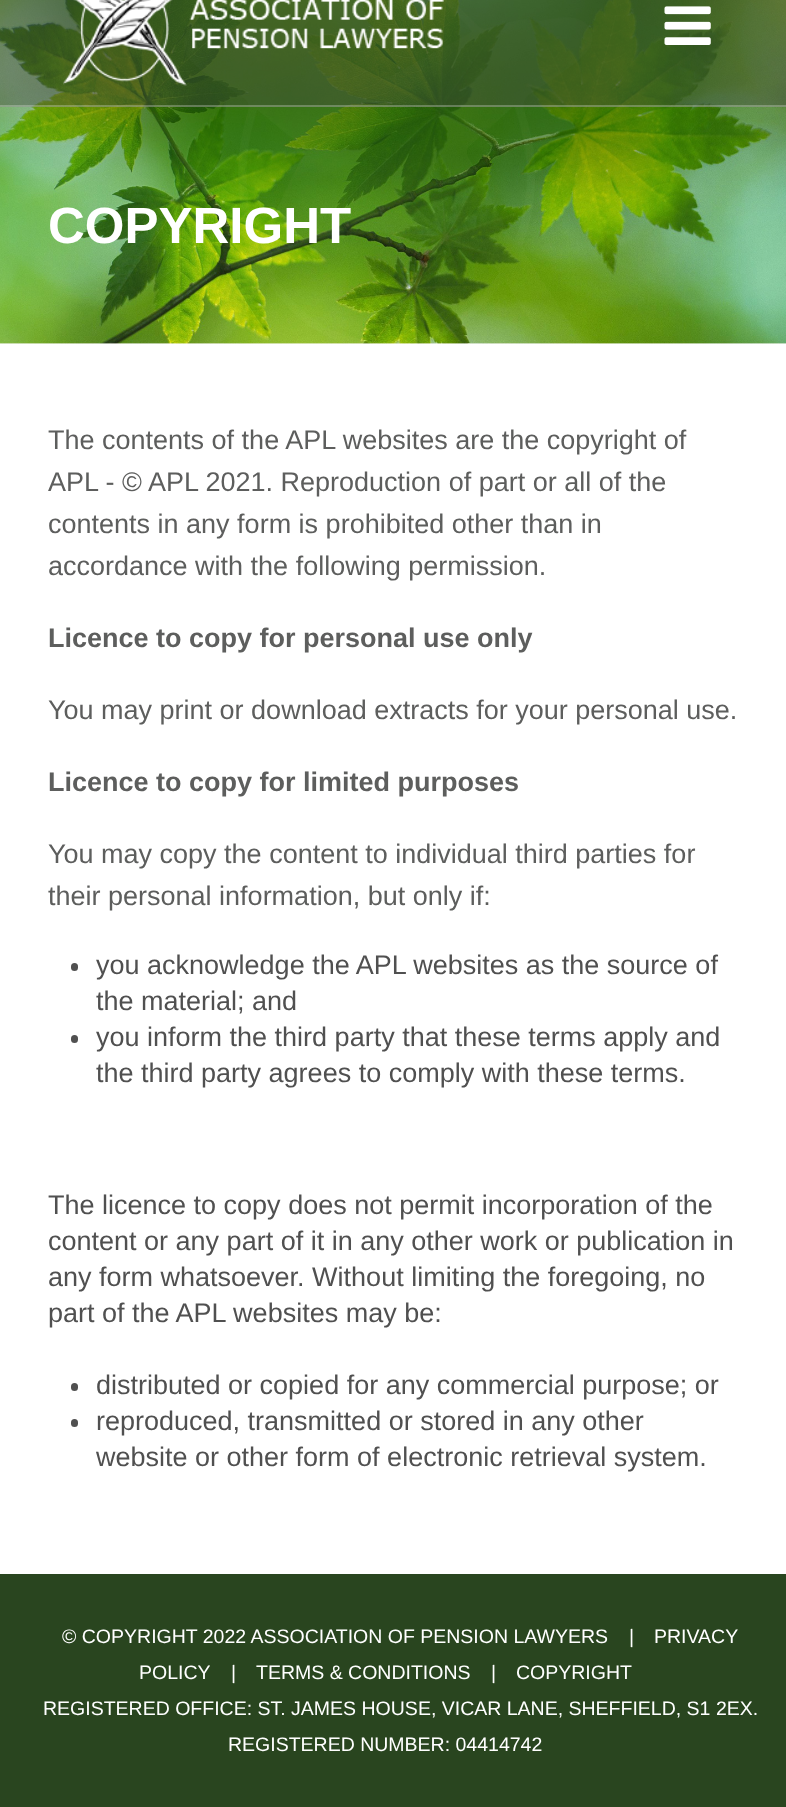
<?xml version="1.0" encoding="UTF-8"?>
<svg xmlns="http://www.w3.org/2000/svg" width="786" height="1807">
    <rect width="100%" height="100%" fill="#FFFFFF"/>
    <rect x="0" y="343" width="786" height="1" fill="#FBF7F6"/>
    <image x="0" y="0" width="786" height="344" href="img_01.png"/>
    <rect x="0" y="0" width="786" height="107" fill="#444444" fill-opacity="0.4"/>
    <rect x="0" y="105" width="786" height="2" fill="#FFFFFF" fill-opacity="0.26"/>
    <image x="63" y="0" width="381" height="86" href="img_02.png"/>
    <image x="664" y="6" width="47" height="39" href="img_03.png"/>
    <text x="48" y="243" font-family="Liberation Sans" font-size="51" font-weight="700" fill="#FFFFFF">COPYRIGHT</text>
    <text font-family="Liberation Sans" font-size="27" fill="#5D5E5D">
        <tspan x="48" y="449">The contents of the APL websites are the copyright of</tspan>
        <tspan x="48" y="491">APL - © APL 2021. Reproduction of part or all of the</tspan>
        <tspan x="48" y="533">contents in any form is prohibited other than in</tspan>
        <tspan x="48" y="575">accordance with the following permission.</tspan>
    </text>
    <text x="48" y="647" font-family="Liberation Sans" font-size="27" font-weight="700" fill="#5D5E5D">Licence to copy for personal use only</text>
    <text x="48" y="719" font-family="Liberation Sans" font-size="27" fill="#5D5E5D">You may print or download extracts for your personal use.</text>
    <text x="48" y="791" font-family="Liberation Sans" font-size="27" font-weight="700" fill="#5D5E5D">Licence to copy for limited purposes</text>
    <text font-family="Liberation Sans" font-size="27" fill="#5D5E5D">
        <tspan x="48" y="863">You may copy the content to individual third parties for</tspan>
        <tspan x="48" y="905">their personal information, but only if:</tspan>
    </text>
    <rect x="71" y="963" width="7" height="8" rx="3.5" fill="#505050"/>
    <text font-family="Liberation Sans" font-size="27" fill="#505050">
        <tspan x="96" y="974">you acknowledge the APL websites as the source of</tspan>
        <tspan x="96" y="1010">the material; and</tspan>
    </text>
    <rect x="71" y="1035" width="7" height="8" rx="3.5" fill="#505050"/>
    <text font-family="Liberation Sans" font-size="27" fill="#505050">
        <tspan x="96" y="1046">you inform the third party that these terms apply and</tspan>
        <tspan x="96" y="1082">the third party agrees to comply with these terms.</tspan>
    </text>
    <text font-family="Liberation Sans" font-size="27" fill="#505050">
        <tspan x="48" y="1214">The licence to copy does not permit incorporation of the</tspan>
        <tspan x="48" y="1250">content or any part of it in any other work or publication in</tspan>
        <tspan x="48" y="1286">any form whatsoever. Without limiting the foregoing, no</tspan>
        <tspan x="48" y="1322">part of the APL websites may be:</tspan>
    </text>
    <rect x="71" y="1383" width="7" height="8" rx="3.5" fill="#505050"/>
    <text x="96" y="1394" font-family="Liberation Sans" font-size="27" fill="#505050">distributed or copied for any commercial purpose; or</text>
    <rect x="71" y="1419" width="7" height="8" rx="3.5" fill="#505050"/>
    <text font-family="Liberation Sans" font-size="27" fill="#505050">
        <tspan x="96" y="1430">reproduced, transmitted or stored in any other</tspan>
        <tspan x="96" y="1466">website or other form of electronic retrieval system.</tspan>
    </text>
    <rect x="0" y="1574" width="786" height="233" fill="#29451F"/>
    <text x="62" y="1643" font-family="Liberation Sans" font-size="19.5" fill="#FFFFFF">© COPYRIGHT 2022 ASSOCIATION OF PENSION LAWYERS</text>
    <text x="629" y="1643" font-family="Liberation Sans" font-size="19.5" fill="#FFFFFF">|</text>
    <text x="654" y="1643" font-family="Liberation Sans" font-size="19.5" fill="#FFFFFF">PRIVACY</text>
    <text x="139" y="1679" font-family="Liberation Sans" font-size="19.5" fill="#FFFFFF">POLICY</text>
    <text x="231" y="1679" font-family="Liberation Sans" font-size="19.5" fill="#FFFFFF">|</text>
    <text x="256" y="1679" font-family="Liberation Sans" font-size="19.5" fill="#FFFFFF">TERMS &amp; CONDITIONS</text>
    <text x="491" y="1679" font-family="Liberation Sans" font-size="19.5" fill="#FFFFFF">|</text>
    <text x="516" y="1679" font-family="Liberation Sans" font-size="19.5" fill="#FFFFFF">COPYRIGHT</text>
    <text x="43" y="1715" font-family="Liberation Sans" font-size="19.5" fill="#FFFFFF">REGISTERED OFFICE: ST. JAMES HOUSE, VICAR LANE, SHEFFIELD, S1 2EX.</text>
    <text x="228" y="1751" font-family="Liberation Sans" font-size="19.5" fill="#FFFFFF">REGISTERED NUMBER: 04414742</text>
</svg>
